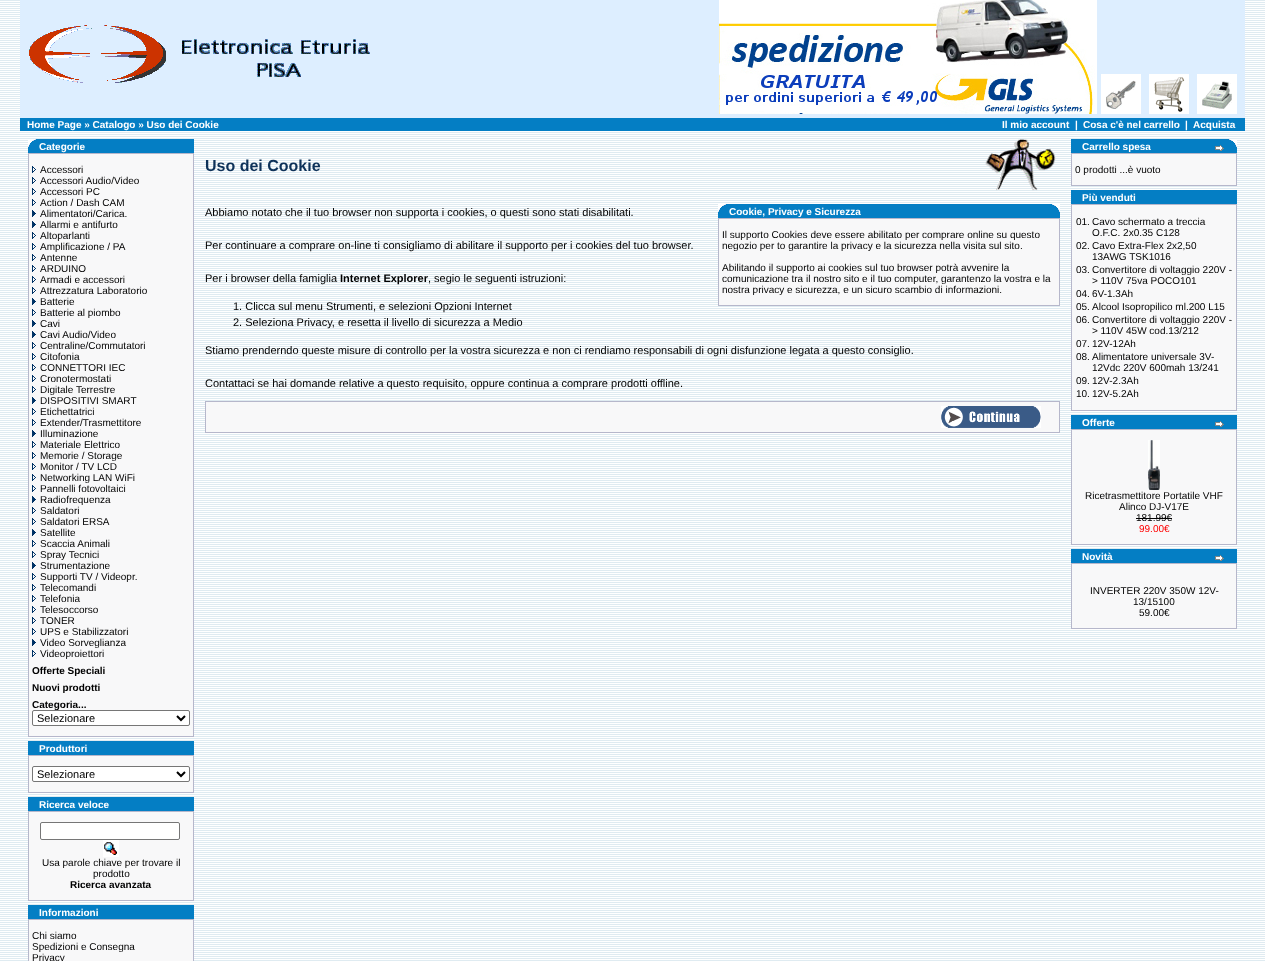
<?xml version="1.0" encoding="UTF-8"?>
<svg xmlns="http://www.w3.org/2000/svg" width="1265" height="961">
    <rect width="100%" height="100%" fill="#FFFFFF"/>
    <image x="0" y="0" width="1265" height="961" href="img_01.png"/>
    <rect x="20" y="0" width="1225" height="118" fill="#DDEEFF"/>
    <image x="29" y="25" width="341" height="58" href="img_02.png"/>
    <image x="719" y="0" width="378" height="114" href="img_03.png"/>
    <image x="1101" y="74" width="40" height="40" href="img_04.png"/>
    <image x="1149" y="74" width="40" height="40" href="img_05.png"/>
    <image x="1197" y="74" width="40" height="40" href="img_06.png"/>
    <rect x="20" y="118" width="1225" height="13" fill="#047EC4"/>
    <text x="27" y="128" font-family="Liberation Sans" font-size="10" font-weight="700" fill="#FFFFFF">Home Page » Catalogo » Uso dei Cookie</text>
    <text x="1002" y="128" font-family="Liberation Sans" font-size="10" font-weight="700" fill="#FFFFFF">Il mio account</text>
    <text x="1075" y="128" font-family="Liberation Sans" font-size="10" font-weight="700" fill="#FFFFFF">|</text>
    <text x="1083" y="128" font-family="Liberation Sans" font-size="10" font-weight="700" fill="#FFFFFF">Cosa c'è nel carrello</text>
    <text x="1185" y="128" font-family="Liberation Sans" font-size="10" font-weight="700" fill="#FFFFFF">|</text>
    <text x="1193" y="128" font-family="Liberation Sans" font-size="10" font-weight="700" fill="#FFFFFF">Acquista</text>
    <rect x="28" y="139" width="166" height="14" fill="#047EC4"/>
    <image x="28" y="139" width="8" height="8" href="img_07.png"/>
    <text x="39" y="150" font-family="Liberation Sans" font-size="10" font-weight="700" fill="#FFFFFF">Categorie</text>
    <rect x="28" y="153" width="166" height="584" fill="#B6B7CB"/>
    <rect x="29" y="154" width="164" height="582" fill="#F8F8F9"/>
    <image x="32" y="166" width="4" height="7" href="img_08.png"/>
    <text x="40" y="173" font-family="Liberation Sans" font-size="10" fill="#000000">Accessori</text>
    <image x="32" y="177" width="4" height="7" href="img_08.png"/>
    <text x="40" y="184" font-family="Liberation Sans" font-size="10" fill="#000000">Accessori Audio/Video</text>
    <image x="32" y="188" width="4" height="7" href="img_08.png"/>
    <text x="40" y="195" font-family="Liberation Sans" font-size="10" fill="#000000">Accessori PC</text>
    <image x="32" y="199" width="4" height="7" href="img_08.png"/>
    <text x="40" y="206" font-family="Liberation Sans" font-size="10" fill="#000000">Action / Dash CAM</text>
    <image x="32" y="210" width="4" height="7" href="img_09.png"/>
    <text x="40" y="217" font-family="Liberation Sans" font-size="10" fill="#000000">Alimentatori/Carica.</text>
    <image x="32" y="221" width="4" height="7" href="img_09.png"/>
    <text x="40" y="228" font-family="Liberation Sans" font-size="10" fill="#000000">Allarmi e antifurto</text>
    <image x="32" y="232" width="4" height="7" href="img_08.png"/>
    <text x="40" y="239" font-family="Liberation Sans" font-size="10" fill="#000000">Altoparlanti</text>
    <image x="32" y="243" width="4" height="7" href="img_08.png"/>
    <text x="40" y="250" font-family="Liberation Sans" font-size="10" fill="#000000">Amplificazione / PA</text>
    <image x="32" y="254" width="4" height="7" href="img_08.png"/>
    <text x="40" y="261" font-family="Liberation Sans" font-size="10" fill="#000000">Antenne</text>
    <image x="32" y="265" width="4" height="7" href="img_08.png"/>
    <text x="40" y="272" font-family="Liberation Sans" font-size="10" fill="#000000">ARDUINO</text>
    <image x="32" y="276" width="4" height="7" href="img_08.png"/>
    <text x="40" y="283" font-family="Liberation Sans" font-size="10" fill="#000000">Armadi e accessori</text>
    <image x="32" y="287" width="4" height="7" href="img_08.png"/>
    <text x="40" y="294" font-family="Liberation Sans" font-size="10" fill="#000000">Attrezzatura Laboratorio</text>
    <image x="32" y="298" width="4" height="7" href="img_09.png"/>
    <text x="40" y="305" font-family="Liberation Sans" font-size="10" fill="#000000">Batterie</text>
    <image x="32" y="309" width="4" height="7" href="img_08.png"/>
    <text x="40" y="316" font-family="Liberation Sans" font-size="10" fill="#000000">Batterie al piombo</text>
    <image x="32" y="320" width="4" height="7" href="img_09.png"/>
    <text x="40" y="327" font-family="Liberation Sans" font-size="10" fill="#000000">Cavi</text>
    <image x="32" y="331" width="4" height="7" href="img_09.png"/>
    <text x="40" y="338" font-family="Liberation Sans" font-size="10" fill="#000000">Cavi Audio/Video</text>
    <image x="32" y="342" width="4" height="7" href="img_08.png"/>
    <text x="40" y="349" font-family="Liberation Sans" font-size="10" fill="#000000">Centraline/Commutatori</text>
    <image x="32" y="353" width="4" height="7" href="img_08.png"/>
    <text x="40" y="360" font-family="Liberation Sans" font-size="10" fill="#000000">Citofonia</text>
    <image x="32" y="364" width="4" height="7" href="img_08.png"/>
    <text x="40" y="371" font-family="Liberation Sans" font-size="10" fill="#000000">CONNETTORI IEC</text>
    <image x="32" y="375" width="4" height="7" href="img_08.png"/>
    <text x="40" y="382" font-family="Liberation Sans" font-size="10" fill="#000000">Cronotermostati</text>
    <image x="32" y="386" width="4" height="7" href="img_08.png"/>
    <text x="40" y="393" font-family="Liberation Sans" font-size="10" fill="#000000">Digitale Terrestre</text>
    <image x="32" y="397" width="4" height="7" href="img_09.png"/>
    <text x="40" y="404" font-family="Liberation Sans" font-size="10" fill="#000000">DISPOSITIVI SMART</text>
    <image x="32" y="408" width="4" height="7" href="img_08.png"/>
    <text x="40" y="415" font-family="Liberation Sans" font-size="10" fill="#000000">Etichettatrici</text>
    <image x="32" y="419" width="4" height="7" href="img_08.png"/>
    <text x="40" y="426" font-family="Liberation Sans" font-size="10" fill="#000000">Extender/Trasmettitore</text>
    <image x="32" y="430" width="4" height="7" href="img_09.png"/>
    <text x="40" y="437" font-family="Liberation Sans" font-size="10" fill="#000000">Illuminazione</text>
    <image x="32" y="441" width="4" height="7" href="img_08.png"/>
    <text x="40" y="448" font-family="Liberation Sans" font-size="10" fill="#000000">Materiale Elettrico</text>
    <image x="32" y="452" width="4" height="7" href="img_08.png"/>
    <text x="40" y="459" font-family="Liberation Sans" font-size="10" fill="#000000">Memorie / Storage</text>
    <image x="32" y="463" width="4" height="7" href="img_08.png"/>
    <text x="40" y="470" font-family="Liberation Sans" font-size="10" fill="#000000">Monitor / TV LCD</text>
    <image x="32" y="474" width="4" height="7" href="img_08.png"/>
    <text x="40" y="481" font-family="Liberation Sans" font-size="10" fill="#000000">Networking LAN WiFi</text>
    <image x="32" y="485" width="4" height="7" href="img_08.png"/>
    <text x="40" y="492" font-family="Liberation Sans" font-size="10" fill="#000000">Pannelli fotovoltaici</text>
    <image x="32" y="496" width="4" height="7" href="img_09.png"/>
    <text x="40" y="503" font-family="Liberation Sans" font-size="10" fill="#000000">Radiofrequenza</text>
    <image x="32" y="507" width="4" height="7" href="img_08.png"/>
    <text x="40" y="514" font-family="Liberation Sans" font-size="10" fill="#000000">Saldatori</text>
    <image x="32" y="518" width="4" height="7" href="img_08.png"/>
    <text x="40" y="525" font-family="Liberation Sans" font-size="10" fill="#000000">Saldatori ERSA</text>
    <image x="32" y="529" width="4" height="7" href="img_09.png"/>
    <text x="40" y="536" font-family="Liberation Sans" font-size="10" fill="#000000">Satellite</text>
    <image x="32" y="540" width="4" height="7" href="img_08.png"/>
    <text x="40" y="547" font-family="Liberation Sans" font-size="10" fill="#000000">Scaccia Animali</text>
    <image x="32" y="551" width="4" height="7" href="img_08.png"/>
    <text x="40" y="558" font-family="Liberation Sans" font-size="10" fill="#000000">Spray Tecnici</text>
    <image x="32" y="562" width="4" height="7" href="img_09.png"/>
    <text x="40" y="569" font-family="Liberation Sans" font-size="10" fill="#000000">Strumentazione</text>
    <image x="32" y="573" width="4" height="7" href="img_08.png"/>
    <text x="40" y="580" font-family="Liberation Sans" font-size="10" fill="#000000">Supporti TV / Videopr.</text>
    <image x="32" y="584" width="4" height="7" href="img_08.png"/>
    <text x="40" y="591" font-family="Liberation Sans" font-size="10" fill="#000000">Telecomandi</text>
    <image x="32" y="595" width="4" height="7" href="img_08.png"/>
    <text x="40" y="602" font-family="Liberation Sans" font-size="10" fill="#000000">Telefonia</text>
    <image x="32" y="606" width="4" height="7" href="img_08.png"/>
    <text x="40" y="613" font-family="Liberation Sans" font-size="10" fill="#000000">Telesoccorso</text>
    <image x="32" y="617" width="4" height="7" href="img_08.png"/>
    <text x="40" y="624" font-family="Liberation Sans" font-size="10" fill="#000000">TONER</text>
    <image x="32" y="628" width="4" height="7" href="img_08.png"/>
    <text x="40" y="635" font-family="Liberation Sans" font-size="10" fill="#000000">UPS e Stabilizzatori</text>
    <image x="32" y="639" width="4" height="7" href="img_09.png"/>
    <text x="40" y="646" font-family="Liberation Sans" font-size="10" fill="#000000">Video Sorveglianza</text>
    <image x="32" y="650" width="4" height="7" href="img_08.png"/>
    <text x="40" y="657" font-family="Liberation Sans" font-size="10" fill="#000000">Videoproiettori</text>
    <text font-family="Liberation Sans" font-size="10" font-weight="700" fill="#000000">
        <tspan x="32" y="674">Offerte Speciali</tspan>
        <tspan x="32" y="691">Nuovi prodotti</tspan>
        <tspan x="32" y="708">Categoria...</tspan>
    </text>
    <rect x="32.5" y="710.5" width="157" height="15" rx="1.5" fill="#FFFFFF" stroke="#767676"/>
    <path d="M 177 716 L 181 720 L 185 716" fill="none" stroke="#000000" stroke-width="2"/>
    <text x="37" y="722" font-family="Liberation Sans" font-size="11" fill="#000000">Selezionare</text>
    <rect x="28" y="741" width="166" height="14" fill="#047EC4"/>
    <text x="39" y="752" font-family="Liberation Sans" font-size="10" font-weight="700" fill="#FFFFFF">Produttori</text>
    <rect x="28" y="755" width="166" height="38" fill="#B6B7CB"/>
    <rect x="29" y="756" width="164" height="36" fill="#F8F8F9"/>
    <rect x="32.5" y="766.5" width="157" height="15" rx="1.5" fill="#FFFFFF" stroke="#767676"/>
    <path d="M 177 772 L 181 776 L 185 772" fill="none" stroke="#000000" stroke-width="2"/>
    <text x="37" y="778" font-family="Liberation Sans" font-size="11" fill="#000000">Selezionare</text>
    <rect x="28" y="797" width="166" height="14" fill="#047EC4"/>
    <text x="39" y="808" font-family="Liberation Sans" font-size="10" font-weight="700" fill="#FFFFFF">Ricerca veloce</text>
    <rect x="28" y="811" width="166" height="90" fill="#B6B7CB"/>
    <rect x="29" y="812" width="164" height="88" fill="#F8F8F9"/>
    <rect x="40.5" y="822.5" width="139" height="17" rx="1.5" fill="#FFFFFF" stroke="#767676"/>
    <image x="103" y="840" width="16" height="17" href="img_10.png"/>
    <text x="42" y="866" font-family="Liberation Sans" font-size="10" fill="#000000">Usa parole chiave per trovare il</text>
    <text x="93" y="877" font-family="Liberation Sans" font-size="10" fill="#000000">prodotto</text>
    <text x="70" y="888" font-family="Liberation Sans" font-size="10" font-weight="700" fill="#000000">Ricerca avanzata</text>
    <rect x="28" y="905" width="166" height="14" fill="#047EC4"/>
    <text x="39" y="916" font-family="Liberation Sans" font-size="10" font-weight="700" fill="#FFFFFF">Informazioni</text>
    <rect x="28" y="919" width="166" height="42" fill="#B6B7CB"/>
    <rect x="29" y="920" width="164" height="41" fill="#F8F8F9"/>
    <text font-family="Liberation Sans" font-size="10" fill="#000000">
        <tspan x="32" y="939">Chi siamo</tspan>
        <tspan x="32" y="950">Spedizioni e Consegna</tspan>
        <tspan x="32" y="961">Privacy</tspan>
    </text>
    <text x="205" y="171" font-family="Liberation Sans" font-size="16" font-weight="700" fill="#0E3259">Uso dei Cookie</text>
    <image x="985" y="139" width="71" height="52" href="img_11.png"/>
    <text x="205" y="216" font-family="Liberation Sans" font-size="11" fill="#000000">Abbiamo notato che il tuo browser non supporta i cookies, o questi sono stati disabilitati.</text>
    <rect x="718" y="204" width="342" height="14" fill="#047EC4"/>
    <image x="718" y="204" width="8" height="8" href="img_07.png"/>
    <text x="729" y="215" font-family="Liberation Sans" font-size="10" font-weight="700" fill="#FFFFFF">Cookie, Privacy e Sicurezza</text>
    <image x="1052" y="204" width="8" height="8" href="img_12.png"/>
    <rect x="718" y="218" width="342" height="88" fill="#B6B7CB"/>
    <rect x="719" y="219" width="340" height="86" fill="#F8F8F9"/>
    <text font-family="Liberation Sans" font-size="10" fill="#000000">
        <tspan x="722" y="238">Il supporto Cookies deve essere abilitato per comprare online su questo</tspan>
        <tspan x="722" y="249">negozio per to garantire la privacy e la sicurezza nella visita sul sito.</tspan>
    </text>
    <text font-family="Liberation Sans" font-size="10" fill="#000000">
        <tspan x="722" y="271">Abilitando il supporto ai cookies sul tuo browser potrà avvenire la</tspan>
        <tspan x="722" y="282">comunicazione tra il nostro sito e il tuo computer, garantenzo la vostra e la</tspan>
        <tspan x="722" y="293">nostra privacy e sicurezza, e un sicuro scambio di informazioni.</tspan>
    </text>
    <text x="205" y="249" font-family="Liberation Sans" font-size="11" fill="#000000">Per continuare a comprare on-line ti consigliamo di abilitare il supporto per i cookies del tuo browser.</text>
    <text x="205" y="282" font-family="Liberation Sans" font-size="11" fill="#000000">Per i browser della famiglia</text>
    <text x="340" y="282" font-family="Liberation Sans" font-size="11" font-weight="700" fill="#000000">Internet Explorer</text>
    <text x="428" y="282" font-family="Liberation Sans" font-size="11" fill="#000000">, segio le seguenti istruzioni:</text>
    <text font-family="Liberation Sans" font-size="11" fill="#000000">
        <tspan x="233" y="310">1. Clicca sul menu Strumenti, e selezioni Opzioni Internet</tspan>
        <tspan x="233" y="326">2. Seleziona Privacy, e resetta il livello di sicurezza a Medio</tspan>
    </text>
    <text x="205" y="354" font-family="Liberation Sans" font-size="11" fill="#000000">Stiamo prenderndo queste misure di controllo per la vostra sicurezza e non ci rendiamo responsabili di ogni disfunzione legata a questo consiglio.</text>
    <text x="205" y="387" font-family="Liberation Sans" font-size="11" fill="#000000">Contattaci se hai domande relative a questo requisito, oppure continua a comprare prodotti offline.</text>
    <rect x="205" y="401" width="855" height="32" fill="#B6B7CB"/>
    <rect x="206" y="402" width="853" height="30" fill="#F8F8F9"/>
    <image x="941" y="406" width="100" height="22" href="img_13.png"/>
    <rect x="1071" y="139" width="166" height="14" fill="#047EC4"/>
    <text x="1082" y="150" font-family="Liberation Sans" font-size="10" font-weight="700" fill="#FFFFFF">Carrello spesa</text>
    <image x="1229" y="139" width="8" height="8" href="img_12.png"/>
    <image x="1215" y="145" width="9" height="6" href="img_14.png"/>
    <rect x="1071" y="153" width="166" height="33" fill="#B6B7CB"/>
    <rect x="1072" y="154" width="164" height="31" fill="#F8F8F9"/>
    <text x="1075" y="173" font-family="Liberation Sans" font-size="10" fill="#000000">0 prodotti ...è vuoto</text>
    <rect x="1071" y="190" width="166" height="14" fill="#047EC4"/>
    <text x="1082" y="201" font-family="Liberation Sans" font-size="10" font-weight="700" fill="#FFFFFF">Più venduti</text>
    <rect x="1071" y="204" width="166" height="207" fill="#B6B7CB"/>
    <rect x="1072" y="205" width="164" height="205" fill="#F8F8F9"/>
    <text x="1076" y="225" font-family="Liberation Sans" font-size="10" fill="#000000">01.</text>
    <text font-family="Liberation Sans" font-size="10" fill="#000000">
        <tspan x="1092" y="225">Cavo schermato a treccia</tspan>
        <tspan x="1092" y="236">O.F.C. 2x0.35 C128</tspan>
    </text>
    <text x="1076" y="249" font-family="Liberation Sans" font-size="10" fill="#000000">02.</text>
    <text font-family="Liberation Sans" font-size="10" fill="#000000">
        <tspan x="1092" y="249">Cavo Extra-Flex 2x2,50</tspan>
        <tspan x="1092" y="260">13AWG TSK1016</tspan>
    </text>
    <text x="1076" y="273" font-family="Liberation Sans" font-size="10" fill="#000000">03.</text>
    <text font-family="Liberation Sans" font-size="10" fill="#000000">
        <tspan x="1092" y="273">Convertitore di voltaggio 220V -</tspan>
        <tspan x="1092" y="284">&gt; 110V 75va POCO101</tspan>
    </text>
    <text x="1076" y="297" font-family="Liberation Sans" font-size="10" fill="#000000">04.</text>
    <text x="1092" y="297" font-family="Liberation Sans" font-size="10" fill="#000000">6V-1.3Ah</text>
    <text x="1076" y="310" font-family="Liberation Sans" font-size="10" fill="#000000">05.</text>
    <text x="1092" y="310" font-family="Liberation Sans" font-size="10" fill="#000000">Alcool Isopropilico ml.200 L15</text>
    <text x="1076" y="323" font-family="Liberation Sans" font-size="10" fill="#000000">06.</text>
    <text font-family="Liberation Sans" font-size="10" fill="#000000">
        <tspan x="1092" y="323">Convertitore di voltaggio 220V -</tspan>
        <tspan x="1092" y="334">&gt; 110V 45W cod.13/212</tspan>
    </text>
    <text x="1076" y="347" font-family="Liberation Sans" font-size="10" fill="#000000">07.</text>
    <text x="1092" y="347" font-family="Liberation Sans" font-size="10" fill="#000000">12V-12Ah</text>
    <text x="1076" y="360" font-family="Liberation Sans" font-size="10" fill="#000000">08.</text>
    <text font-family="Liberation Sans" font-size="10" fill="#000000">
        <tspan x="1092" y="360">Alimentatore universale 3V-</tspan>
        <tspan x="1092" y="371">12Vdc 220V 600mah 13/241</tspan>
    </text>
    <text x="1076" y="384" font-family="Liberation Sans" font-size="10" fill="#000000">09.</text>
    <text x="1092" y="384" font-family="Liberation Sans" font-size="10" fill="#000000">12V-2.3Ah</text>
    <text x="1076" y="397" font-family="Liberation Sans" font-size="10" fill="#000000">10.</text>
    <text x="1092" y="397" font-family="Liberation Sans" font-size="10" fill="#000000">12V-5.2Ah</text>
    <rect x="1071" y="415" width="166" height="14" fill="#047EC4"/>
    <text x="1082" y="426" font-family="Liberation Sans" font-size="10" font-weight="700" fill="#FFFFFF">Offerte</text>
    <image x="1215" y="421" width="9" height="6" href="img_14.png"/>
    <rect x="1071" y="429" width="166" height="116" fill="#B6B7CB"/>
    <rect x="1072" y="430" width="164" height="114" fill="#F8F8F9"/>
    <image x="1148" y="440" width="12" height="50" href="img_15.png"/>
    <text x="1085" y="499" font-family="Liberation Sans" font-size="10" fill="#000000">Ricetrasmettitore Portatile VHF</text>
    <text x="1119" y="510" font-family="Liberation Sans" font-size="10" fill="#000000">Alinco DJ-V17E</text>
    <text x="1136" y="521" font-family="Liberation Sans" font-size="10" fill="#000000">181.99€</text>
    <rect x="1136" y="518" width="36" height="1" fill="#000000"/>
    <text x="1139" y="532" font-family="Liberation Sans" font-size="10" fill="#FF0000">99.00€</text>
    <rect x="1071" y="549" width="166" height="14" fill="#047EC4"/>
    <text x="1082" y="560" font-family="Liberation Sans" font-size="10" font-weight="700" fill="#FFFFFF">Novità</text>
    <image x="1215" y="555" width="9" height="6" href="img_14.png"/>
    <rect x="1071" y="563" width="166" height="66" fill="#B6B7CB"/>
    <rect x="1072" y="564" width="164" height="64" fill="#F8F8F9"/>
    <text x="1090" y="594" font-family="Liberation Sans" font-size="10" fill="#000000">INVERTER 220V 350W 12V-</text>
    <text x="1133" y="605" font-family="Liberation Sans" font-size="10" fill="#000000">13/15100</text>
    <text x="1139" y="616" font-family="Liberation Sans" font-size="10" fill="#000000">59.00€</text>
</svg>
